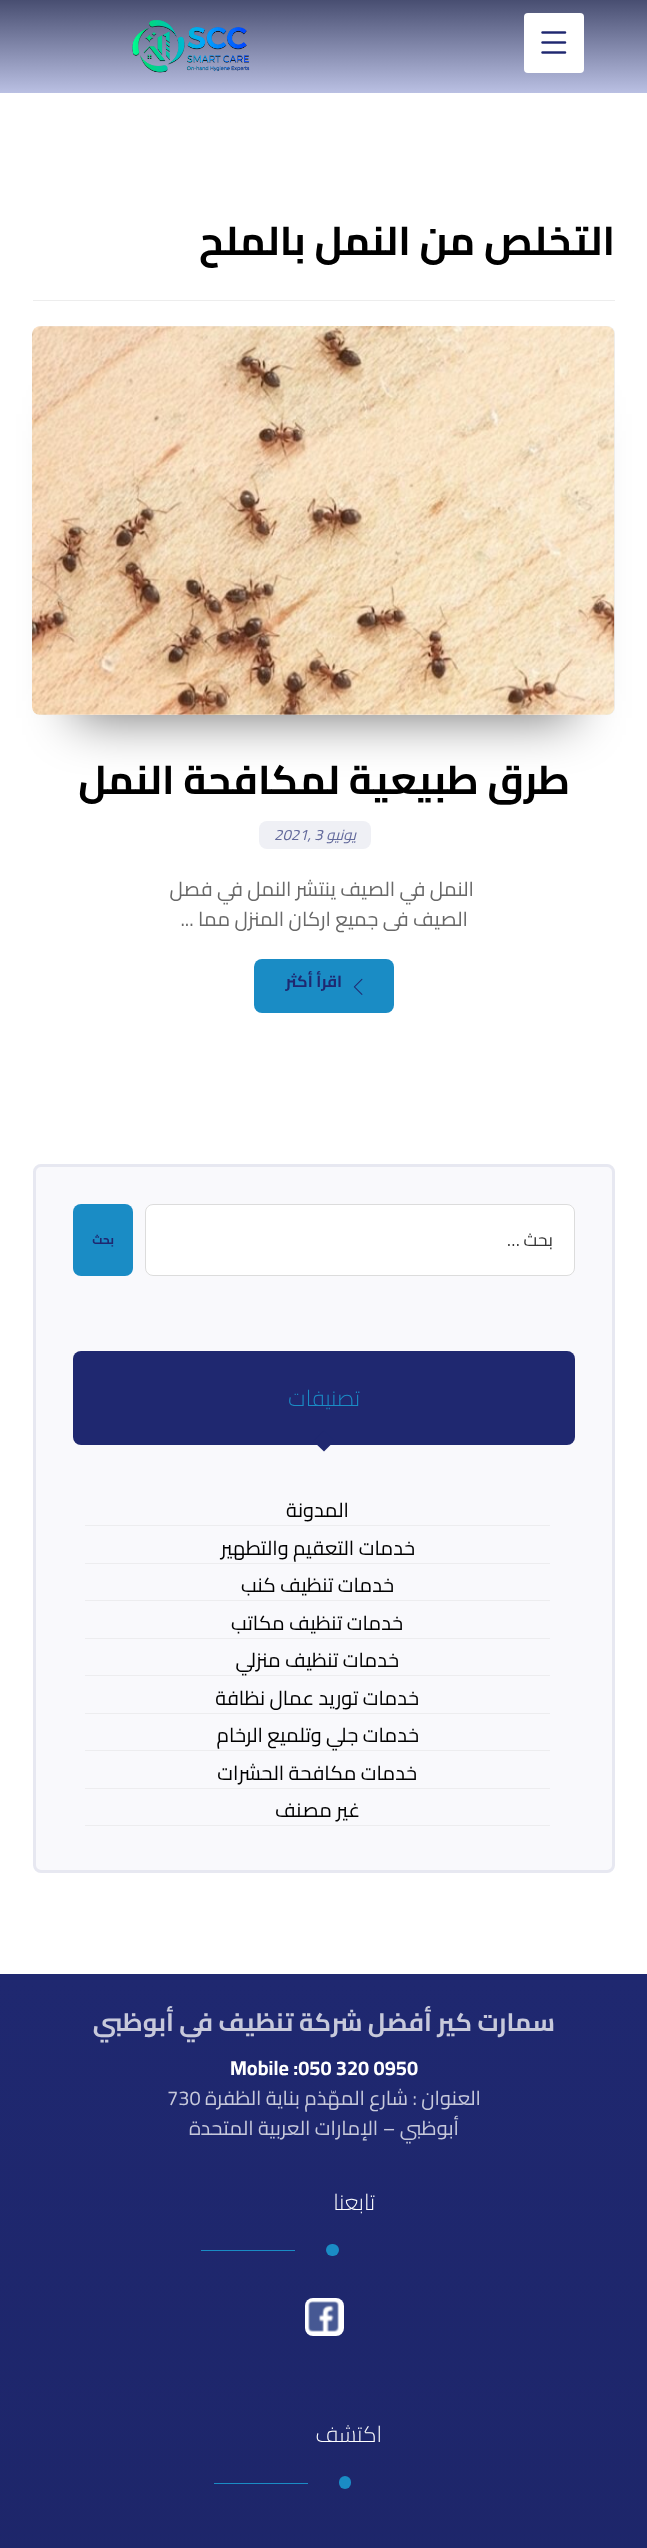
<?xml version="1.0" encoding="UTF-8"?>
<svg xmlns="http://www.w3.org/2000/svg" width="647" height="2548">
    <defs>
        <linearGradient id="g1" gradientUnits="userSpaceOnUse" x1="324" y1="93" x2="324" y2="0"><stop offset="0" stop-color="#BAC0E3"/><stop offset="1" stop-color="#484E71"/></linearGradient>
        <filter id="blur1" x="-50%" y="-200%" width="200%" height="500%"><feGaussianBlur stdDeviation="25.5"/></filter>
        <linearGradient id="g2" gradientUnits="userSpaceOnUse" x1="324" y1="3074" x2="324" y2="1974"><stop offset="0" stop-color="#1C2465"/><stop offset="1" stop-color="#1F2870"/></linearGradient>
    </defs>
    <rect width="100%" height="100%" fill="#FFFFFF"/>
    <rect x="0" y="0" width="647" height="93" fill="url(#g1)"/>
    <rect x="524" y="13" width="60" height="60" rx="4" fill="#FFFFFF"/>
    <image x="541" y="31" width="26" height="23" href="img_01.png"/>
    <image x="132" y="20" width="118" height="53" href="img_02.png"/>
    <rect x="33" y="300" width="582" height="1" fill="#EDEDED"/>
    <text x="615" y="255" font-family="Cairo" font-size="40" font-weight="700" direction="rtl" fill="#000000">التخلص من النمل بالملح</text>
    <rect x="75" y="414" width="498" height="304" fill="#000000" fill-opacity="0.54" filter="url(#blur1)"/>
    <rect x="33" y="326" width="582" height="389" rx="8" fill="#EEEEEE"/>
    <image x="32" y="326" width="583" height="389" href="img_03.png"/>
    <text x="570" y="794" font-family="Cairo" font-size="40" font-weight="700" direction="rtl" fill="#000000">طرق طبيعية لمكافحة النمل</text>
    <rect x="259" y="821" width="112" height="28" rx="8" fill="#EFF0F5"/>
    <text x="356" y="840" font-family="Cairo" font-size="15" font-style="italic" direction="rtl" fill="#62699B">يونيو</text>
    <text x="274" y="840" font-family="Cairo" font-size="15" font-style="italic" fill="#62699B">2021, 3</text>
    <text x="474" y="896" font-family="Cairo" font-size="20" direction="rtl" fill="#686868">النمل في الصيف ينتشر النمل في فصل</text>
    <text x="468" y="926" font-family="Cairo" font-size="20" direction="rtl" fill="#686868">الصيف فى جميع اركان المنزل مما ...</text>
    <rect x="254" y="959" width="140" height="54" rx="8" fill="#1A8CC5"/>
    <image x="353" y="978" width="10" height="17" href="img_04.png"/>
    <text x="342" y="987" font-family="Cairo" font-size="16" font-weight="700" direction="rtl" fill="#1F2870">اقرأ أكثر</text>
    <rect x="33" y="1164" width="582" height="709" rx="8" fill="#F9F9FC"/>
    <rect x="34.5" y="1165.5" width="579" height="706" rx="6.5" fill="none" stroke="#1F2870" stroke-opacity="0.08" stroke-width="3"/>
    <rect x="145" y="1204" width="430" height="72" rx="8" fill="#FFFFFF"/>
    <rect x="145.5" y="1204.5" width="429" height="71" rx="7.5" fill="none" stroke="#A7A7A7" stroke-opacity="0.4"/>
    <text x="553" y="1246" font-family="Cairo" font-size="17.5" direction="rtl" fill="#333333">بحث …</text>
    <rect x="73" y="1204" width="60" height="72" rx="8" fill="#1A8CC5"/>
    <text x="114" y="1244" font-family="Cairo" font-size="12" font-weight="700" direction="rtl" fill="#1F2870">بحث</text>
    <rect x="73" y="1351" width="502" height="94" rx="8" fill="#1F2870"/>
    <text x="360" y="1406" font-family="Cairo" font-size="22.5" font-weight="300" direction="rtl" fill="#1A8CC5">تصنيفات</text>
    <path d="M 324 1430.5 L 334.5 1441 L 324 1451.5 L 313 1441 Z" fill="#1F2870"/>
    <rect x="85" y="1525" width="465" height="1" fill="#EDEDEF"/>
    <text x="349" y="1517" font-family="Cairo" font-size="20" direction="rtl" fill="#000000">المدونة</text>
    <rect x="85" y="1563" width="465" height="1" fill="#EDEDEF"/>
    <text x="415" y="1555" font-family="Cairo" font-size="20" direction="rtl" fill="#000000">خدمات التعقيم والتطهير</text>
    <rect x="85" y="1600" width="465" height="1" fill="#EDEDEF"/>
    <text x="394" y="1592" font-family="Cairo" font-size="20" direction="rtl" fill="#000000">خدمات تنظيف كنب</text>
    <rect x="85" y="1638" width="465" height="1" fill="#EDEDEF"/>
    <text x="403" y="1630" font-family="Cairo" font-size="20" direction="rtl" fill="#000000">خدمات تنظيف مكاتب</text>
    <rect x="85" y="1675" width="465" height="1" fill="#EDEDEF"/>
    <text x="399" y="1667" font-family="Cairo" font-size="20" direction="rtl" fill="#000000">خدمات تنظيف منزلي</text>
    <rect x="85" y="1713" width="465" height="1" fill="#EDEDEF"/>
    <text x="419" y="1705" font-family="Cairo" font-size="20" direction="rtl" fill="#000000">خدمات توريد عمال نظافة</text>
    <rect x="85" y="1750" width="465" height="1" fill="#EDEDEF"/>
    <text x="419" y="1742" font-family="Cairo" font-size="20" direction="rtl" fill="#000000">خدمات جلي وتلميع الرخام</text>
    <rect x="85" y="1788" width="465" height="1" fill="#EDEDEF"/>
    <text x="417" y="1780" font-family="Cairo" font-size="20" direction="rtl" fill="#000000">خدمات مكافحة الحشرات</text>
    <rect x="85" y="1825" width="465" height="1" fill="#EDEDEF"/>
    <text x="360" y="1817" font-family="Cairo" font-size="20" direction="rtl" fill="#000000">غير مصنف</text>
    <rect x="0" y="1974" width="647" height="574" fill="url(#g2)"/>
    <text x="555" y="2031" font-family="Cairo" font-size="25" font-weight="700" direction="rtl" fill="#C7C9DB">سمارت كير أفضل شركة تنظيف في أبوظبي</text>
    <text x="230" y="2075" font-family="Cairo" font-size="20" font-weight="700" fill="#FFFFFF">Mobile :050 320 0950</text>
    <text x="481" y="2105" font-family="Cairo" font-size="20" direction="rtl" fill="#C7C9DB">العنوان : شارع المهّذم بناية الظفرة</text>
    <text x="167" y="2105" font-family="Cairo" font-size="20" fill="#C7C9DB">730</text>
    <text x="459" y="2135" font-family="Cairo" font-size="20" direction="rtl" fill="#C7C9DB">أبوظبي – الإمارات العربية المتحدة</text>
    <text x="375" y="2210" font-family="Cairo" font-size="22.5" font-weight="300" letter-spacing="5" direction="rtl" fill="#FFFFFF">تابعنا</text>
    <rect x="326" y="2244" width="13" height="12" rx="6" fill="#1A8CC5"/>
    <rect x="201" y="2250" width="94" height="1" fill="#1A8CC5"/>
    <rect x="305" y="2298" width="39" height="38" rx="8" fill="#FFFFFF"/>
    <image x="308" y="2301" width="31" height="31" href="img_05.png"/>
    <text x="382" y="2442" font-family="Cairo" font-size="22.5" font-weight="300" letter-spacing="5" direction="rtl" fill="#FFFFFF">اكتشف</text>
    <rect x="339" y="2476" width="12" height="13" rx="6" fill="#1A8CC5"/>
    <rect x="214" y="2483" width="94" height="1" fill="#1A8CC5"/>
</svg>
